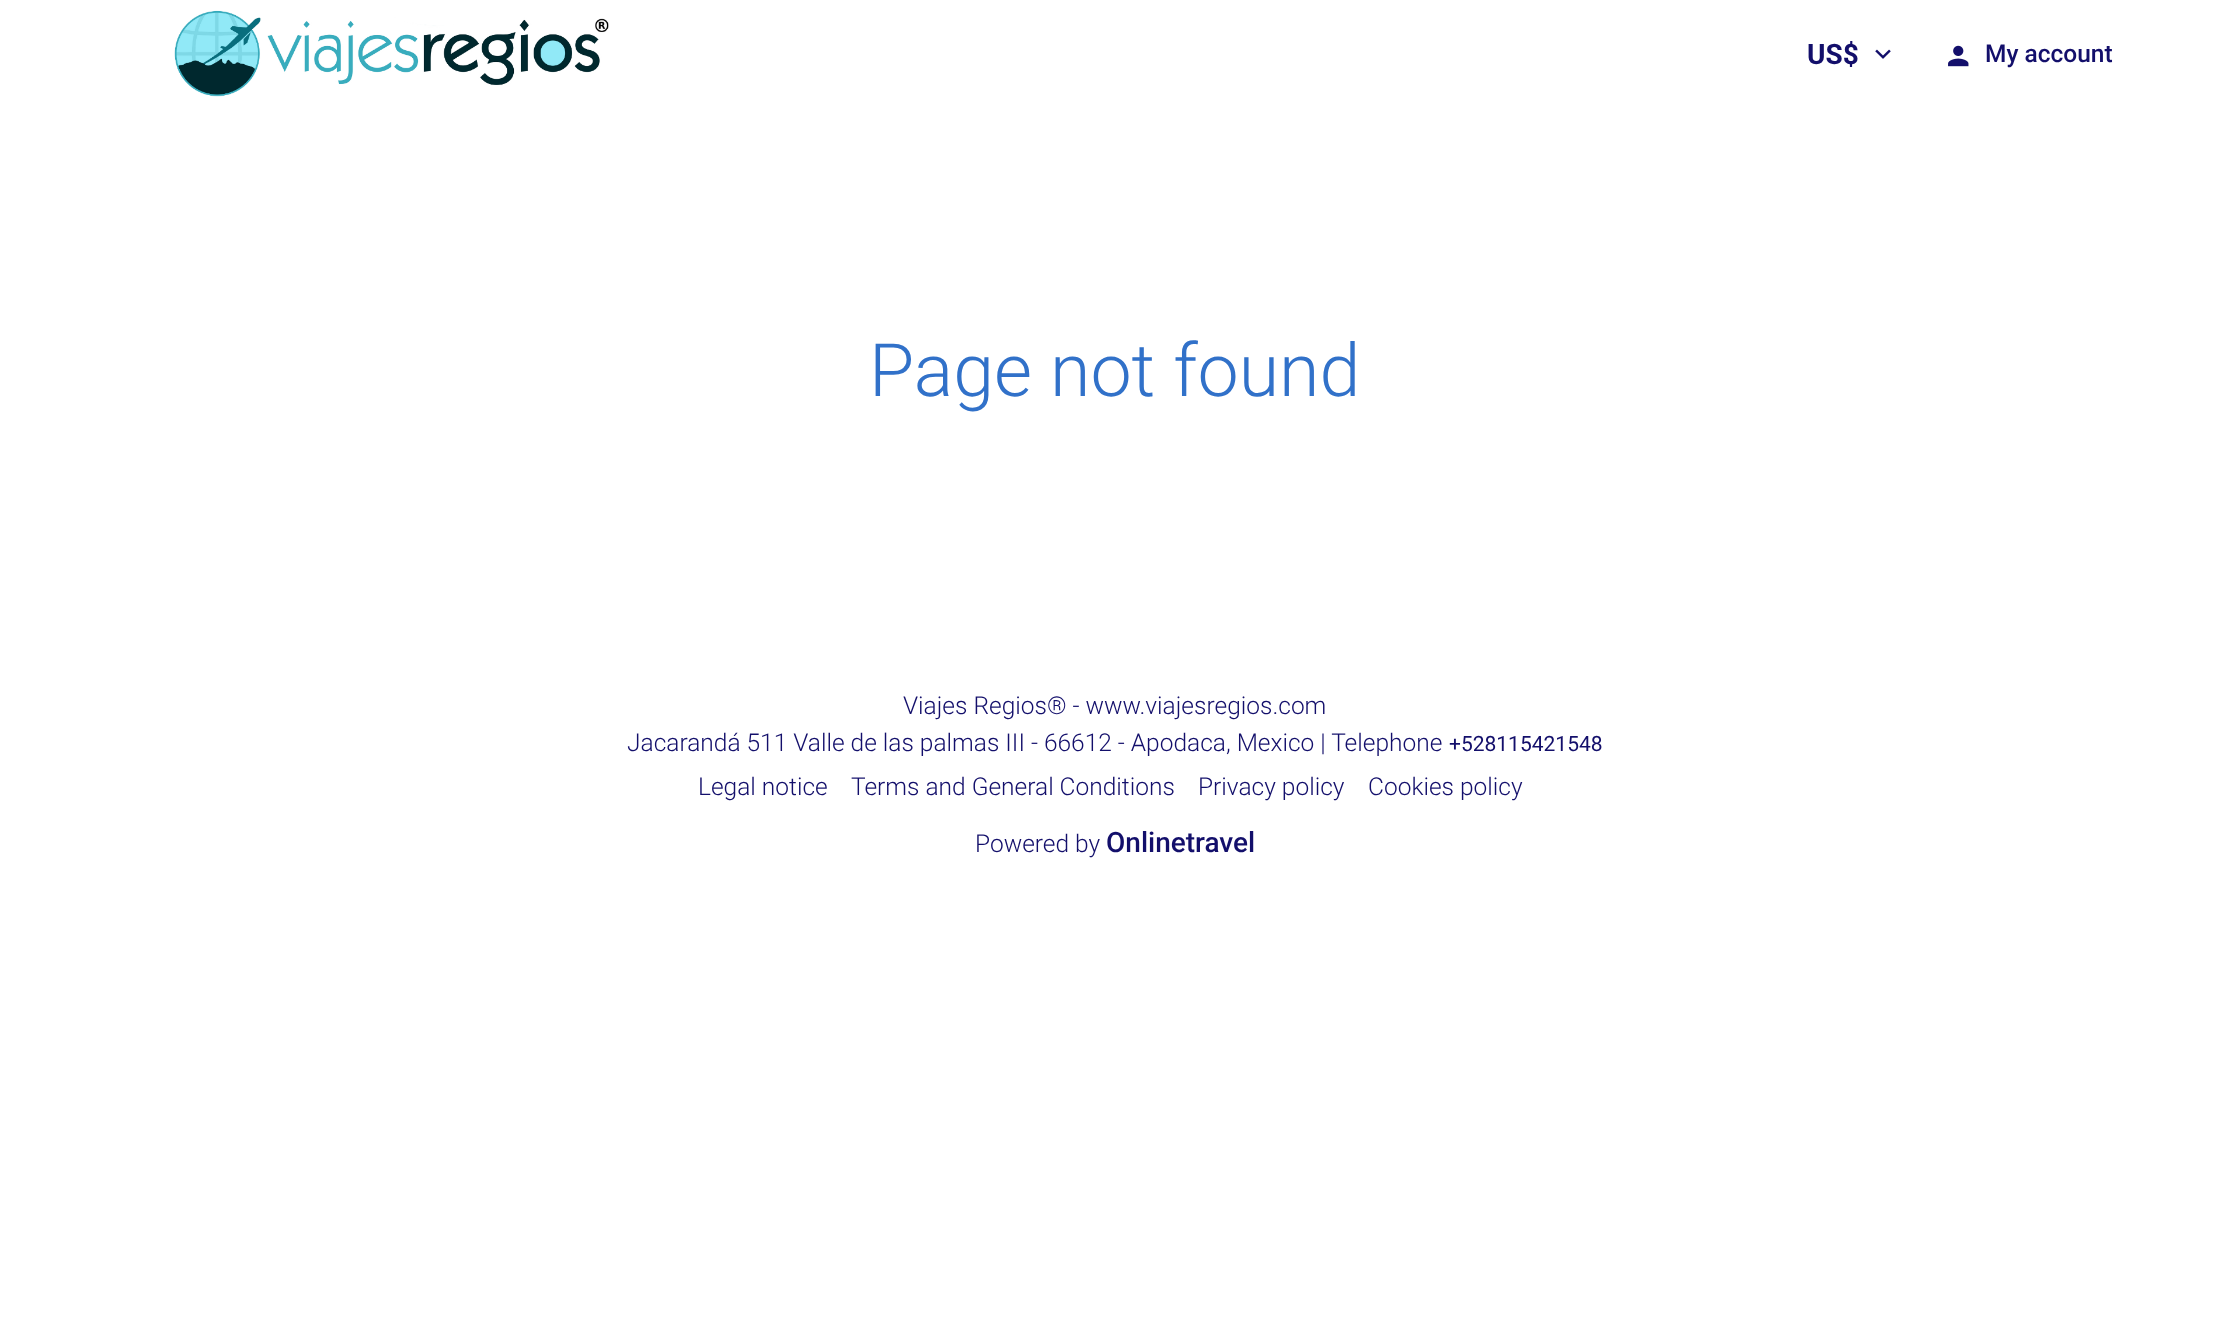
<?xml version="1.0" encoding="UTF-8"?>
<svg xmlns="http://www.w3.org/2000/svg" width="2228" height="1332">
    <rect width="100%" height="100%" fill="#FFFFFF"/>
    <image x="174" y="10" width="435" height="87" href="img_01.png"/>
    <text x="1807" y="64" font-family="Roboto" font-size="28" font-weight="700" fill="#130F6B">US$</text>
    <image x="1875" y="49" width="16" height="10" href="img_02.png"/>
    <image x="1948" y="45" width="21" height="22" href="img_03.png"/>
    <text x="1985" y="62" font-family="Roboto" font-size="24.5" font-weight="500" fill="#130F6B">My account</text>
    <text x="869" y="396" font-family="Roboto" font-size="73.5" font-weight="300" fill="#3171C9">Page not found</text>
    <text x="903" y="714" font-family="Roboto" font-size="24.5" font-weight="300" fill="#130F6B">Viajes Regios® - www.viajesregios.com</text>
    <text x="627" y="751" font-family="Roboto" font-size="24.5" font-weight="300" fill="#130F6B">Jacarandá 511 Valle de las palmas III - 66612 - Apodaca, Mexico | Telephone</text>
    <text x="1449" y="751" font-family="Roboto" font-size="21" fill="#130F6B">+528115421548</text>
    <text x="698" y="795" font-family="Roboto" font-size="24.5" font-weight="300" fill="#130F6B">Legal notice</text>
    <text x="851" y="795" font-family="Roboto" font-size="24.5" font-weight="300" fill="#130F6B">Terms and General Conditions</text>
    <text x="1198" y="795" font-family="Roboto" font-size="24.5" font-weight="300" fill="#130F6B">Privacy policy</text>
    <text x="1368" y="795" font-family="Roboto" font-size="24.5" font-weight="300" fill="#130F6B">Cookies policy</text>
    <text x="975" y="852" font-family="Roboto" font-size="24.5" font-weight="300" fill="#130F6B">Powered by</text>
    <text x="1106" y="852" font-family="Roboto" font-size="28" font-weight="500" fill="#130F6B">Onlinetravel</text>
</svg>
